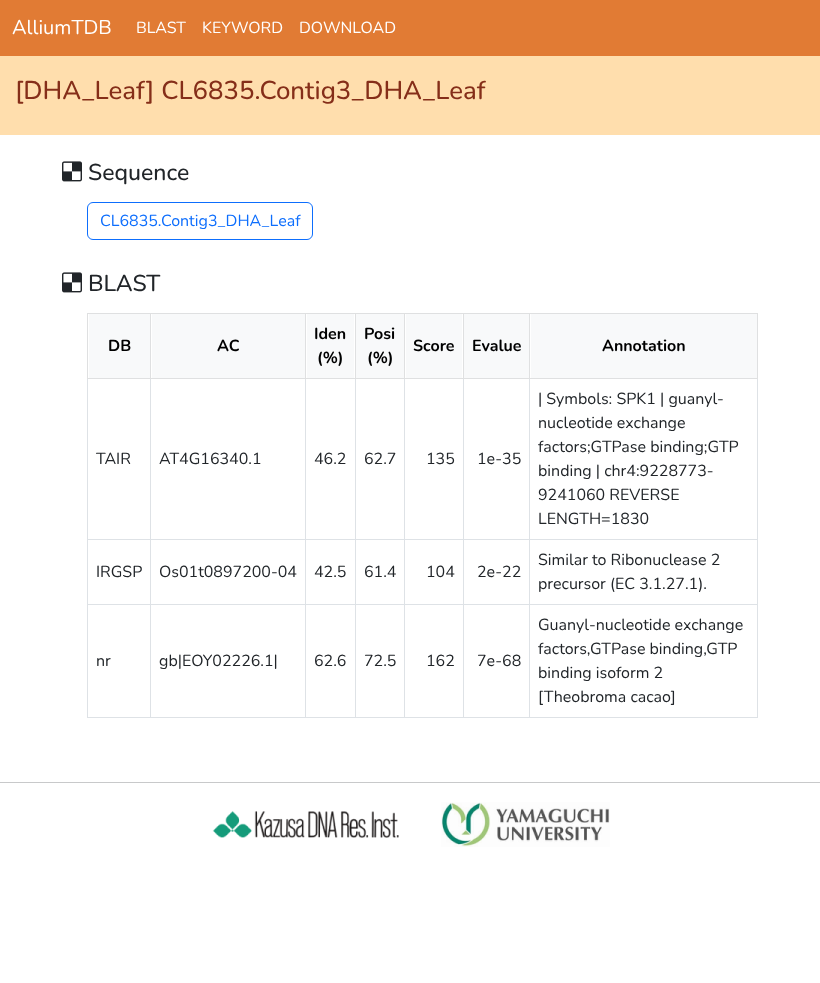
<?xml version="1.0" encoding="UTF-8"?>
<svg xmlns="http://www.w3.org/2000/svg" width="820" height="983">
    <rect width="100%" height="100%" fill="#FFFFFF"/>
    <rect x="0" y="0" width="820" height="56" fill="#E17B34"/>
    <text x="12" y="34" font-family="Nunito" font-size="20" fill="#FFFFFF">AlliumTDB</text>
    <text x="136" y="33" font-family="Nunito" font-size="16" fill="#FFFFFF">BLAST</text>
    <text x="202" y="33" font-family="Nunito" font-size="16" fill="#FFFFFF">KEYWORD</text>
    <text x="299" y="33" font-family="Nunito" font-size="16" fill="#FFFFFF">DOWNLOAD</text>
    <rect x="0" y="56" width="820" height="79" fill="#FFDEAD"/>
    <text x="15" y="99" font-family="Nunito" font-size="25.75" font-weight="500" fill="#852E19">[DHA_Leaf] CL6835.Contig3_DHA_Leaf</text>
    <image x="62" y="161" width="20" height="21" href="img_01.png"/>
    <text x="88" y="180" font-family="Nunito" font-size="23" font-weight="500" fill="#212529">Sequence</text>
    <rect x="87.5" y="202.5" width="225" height="37" rx="5.5" fill="none" stroke="#0D6EFD"/>
    <text x="100" y="226" font-family="Nunito" font-size="16" fill="#0D6EFD">CL6835.Contig3_DHA_Leaf</text>
    <image x="62" y="272" width="20" height="21" href="img_01.png"/>
    <text x="88" y="291" font-family="Nunito" font-size="23" font-weight="500" fill="#212529">BLAST</text>
    <rect x="87" y="313" width="671" height="1" fill="#DFE0E1"/>
    <rect x="87" y="378" width="671" height="1" fill="#DFE0E1"/>
    <rect x="89" y="314" width="61" height="64" fill="#F8F9FA"/>
    <rect x="87" y="539" width="671" height="1" fill="#DEE2E6"/>
    <rect x="87" y="604" width="671" height="1" fill="#DEE2E6"/>
    <rect x="87" y="717" width="671" height="1" fill="#DEE2E6"/>
    <rect x="87" y="378" width="1" height="340" fill="#DEE2E6"/>
    <rect x="87" y="313" width="1" height="66" fill="#DFE0E1"/>
    <text x="108" y="351" font-family="Nunito" font-size="16" font-weight="700" fill="#000000">DB</text>
    <rect x="152" y="314" width="153" height="64" fill="#F8F9FA"/>
    <rect x="150" y="378" width="1" height="340" fill="#DEE2E6"/>
    <rect x="150" y="313" width="1" height="66" fill="#DFE0E1"/>
    <text x="217" y="351" font-family="Nunito" font-size="16" font-weight="700" fill="#000000">AC</text>
    <rect x="307" y="314" width="47" height="64" fill="#F8F9FA"/>
    <rect x="305" y="378" width="1" height="340" fill="#DEE2E6"/>
    <rect x="305" y="313" width="1" height="66" fill="#DFE0E1"/>
    <text x="314" y="339" font-family="Nunito" font-size="16" font-weight="700" fill="#000000">Iden</text>
    <text x="317" y="363" font-family="Nunito" font-size="16" font-weight="700" fill="#000000">(%)</text>
    <rect x="356" y="314" width="48" height="64" fill="#F8F9FA"/>
    <rect x="355" y="378" width="1" height="340" fill="#DEE2E6"/>
    <rect x="355" y="313" width="1" height="66" fill="#DFE0E1"/>
    <text x="364" y="339" font-family="Nunito" font-size="16" font-weight="700" fill="#000000">Posi</text>
    <text x="367" y="363" font-family="Nunito" font-size="16" font-weight="700" fill="#000000">(%)</text>
    <rect x="406" y="314" width="56" height="64" fill="#F8F9FA"/>
    <rect x="404" y="378" width="1" height="340" fill="#DEE2E6"/>
    <rect x="404" y="313" width="1" height="66" fill="#DFE0E1"/>
    <text x="413" y="351" font-family="Nunito" font-size="16" font-weight="700" fill="#000000">Score</text>
    <rect x="464" y="314" width="65" height="64" fill="#F8F9FA"/>
    <rect x="463" y="378" width="1" height="340" fill="#DEE2E6"/>
    <rect x="463" y="313" width="1" height="66" fill="#DFE0E1"/>
    <text x="472" y="351" font-family="Nunito" font-size="16" font-weight="700" fill="#000000">Evalue</text>
    <rect x="531" y="314" width="226" height="64" fill="#F8F9FA"/>
    <rect x="757" y="378" width="1" height="340" fill="#DEE2E6"/>
    <rect x="757" y="313" width="1" height="66" fill="#DFE0E1"/>
    <rect x="529" y="378" width="1" height="340" fill="#DEE2E6"/>
    <rect x="529" y="313" width="1" height="66" fill="#DFE0E1"/>
    <text x="602" y="351" font-family="Nunito" font-size="16" font-weight="700" fill="#000000">Annotation</text>
    <text x="96" y="464" font-family="Nunito" font-size="16" fill="#212529">TAIR</text>
    <text x="159" y="464" font-family="Nunito" font-size="16" fill="#212529">AT4G16340.1</text>
    <text x="314" y="464" font-family="Nunito" font-size="16" fill="#212529">46.2</text>
    <text x="364" y="464" font-family="Nunito" font-size="16" fill="#212529">62.7</text>
    <text x="426" y="464" font-family="Nunito" font-size="16" fill="#212529">135</text>
    <text x="477" y="464" font-family="Nunito" font-size="16" fill="#212529">1e-35</text>
    <text font-family="Nunito" font-size="16" fill="#212529">
        <tspan x="538" y="404">| Symbols: SPK1 | guanyl-</tspan>
        <tspan x="538" y="428">nucleotide exchange</tspan>
        <tspan x="538" y="452">factors;GTPase binding;GTP</tspan>
        <tspan x="538" y="476">binding | chr4:9228773-</tspan>
        <tspan x="538" y="500">9241060 REVERSE</tspan>
        <tspan x="538" y="524">LENGTH=1830</tspan>
    </text>
    <text x="96" y="577" font-family="Nunito" font-size="16" fill="#212529">IRGSP</text>
    <text x="159" y="577" font-family="Nunito" font-size="16" fill="#212529">Os01t0897200-04</text>
    <text x="314" y="577" font-family="Nunito" font-size="16" fill="#212529">42.5</text>
    <text x="364" y="577" font-family="Nunito" font-size="16" fill="#212529">61.4</text>
    <text x="426" y="577" font-family="Nunito" font-size="16" fill="#212529">104</text>
    <text x="477" y="577" font-family="Nunito" font-size="16" fill="#212529">2e-22</text>
    <text font-family="Nunito" font-size="16" fill="#212529">
        <tspan x="538" y="565">Similar to Ribonuclease 2</tspan>
        <tspan x="538" y="589">precursor (EC 3.1.27.1).</tspan>
    </text>
    <text x="96" y="666" font-family="Nunito" font-size="16" fill="#212529">nr</text>
    <text x="159" y="666" font-family="Nunito" font-size="16" fill="#212529">gb|EOY02226.1|</text>
    <text x="314" y="666" font-family="Nunito" font-size="16" fill="#212529">62.6</text>
    <text x="364" y="666" font-family="Nunito" font-size="16" fill="#212529">72.5</text>
    <text x="426" y="666" font-family="Nunito" font-size="16" fill="#212529">162</text>
    <text x="477" y="666" font-family="Nunito" font-size="16" fill="#212529">7e-68</text>
    <text font-family="Nunito" font-size="16" fill="#212529">
        <tspan x="538" y="630">Guanyl-nucleotide exchange</tspan>
        <tspan x="538" y="654">factors,GTPase binding,GTP</tspan>
        <tspan x="538" y="678">binding isoform 2</tspan>
        <tspan x="538" y="702">[Theobroma cacao]</tspan>
    </text>
    <rect x="0" y="782" width="820" height="1" fill="#C8C9CA"/>
    <image x="212" y="811" width="187" height="27" href="img_02.png"/>
    <image x="441" y="802" width="169" height="45" href="img_03.png"/>
</svg>
